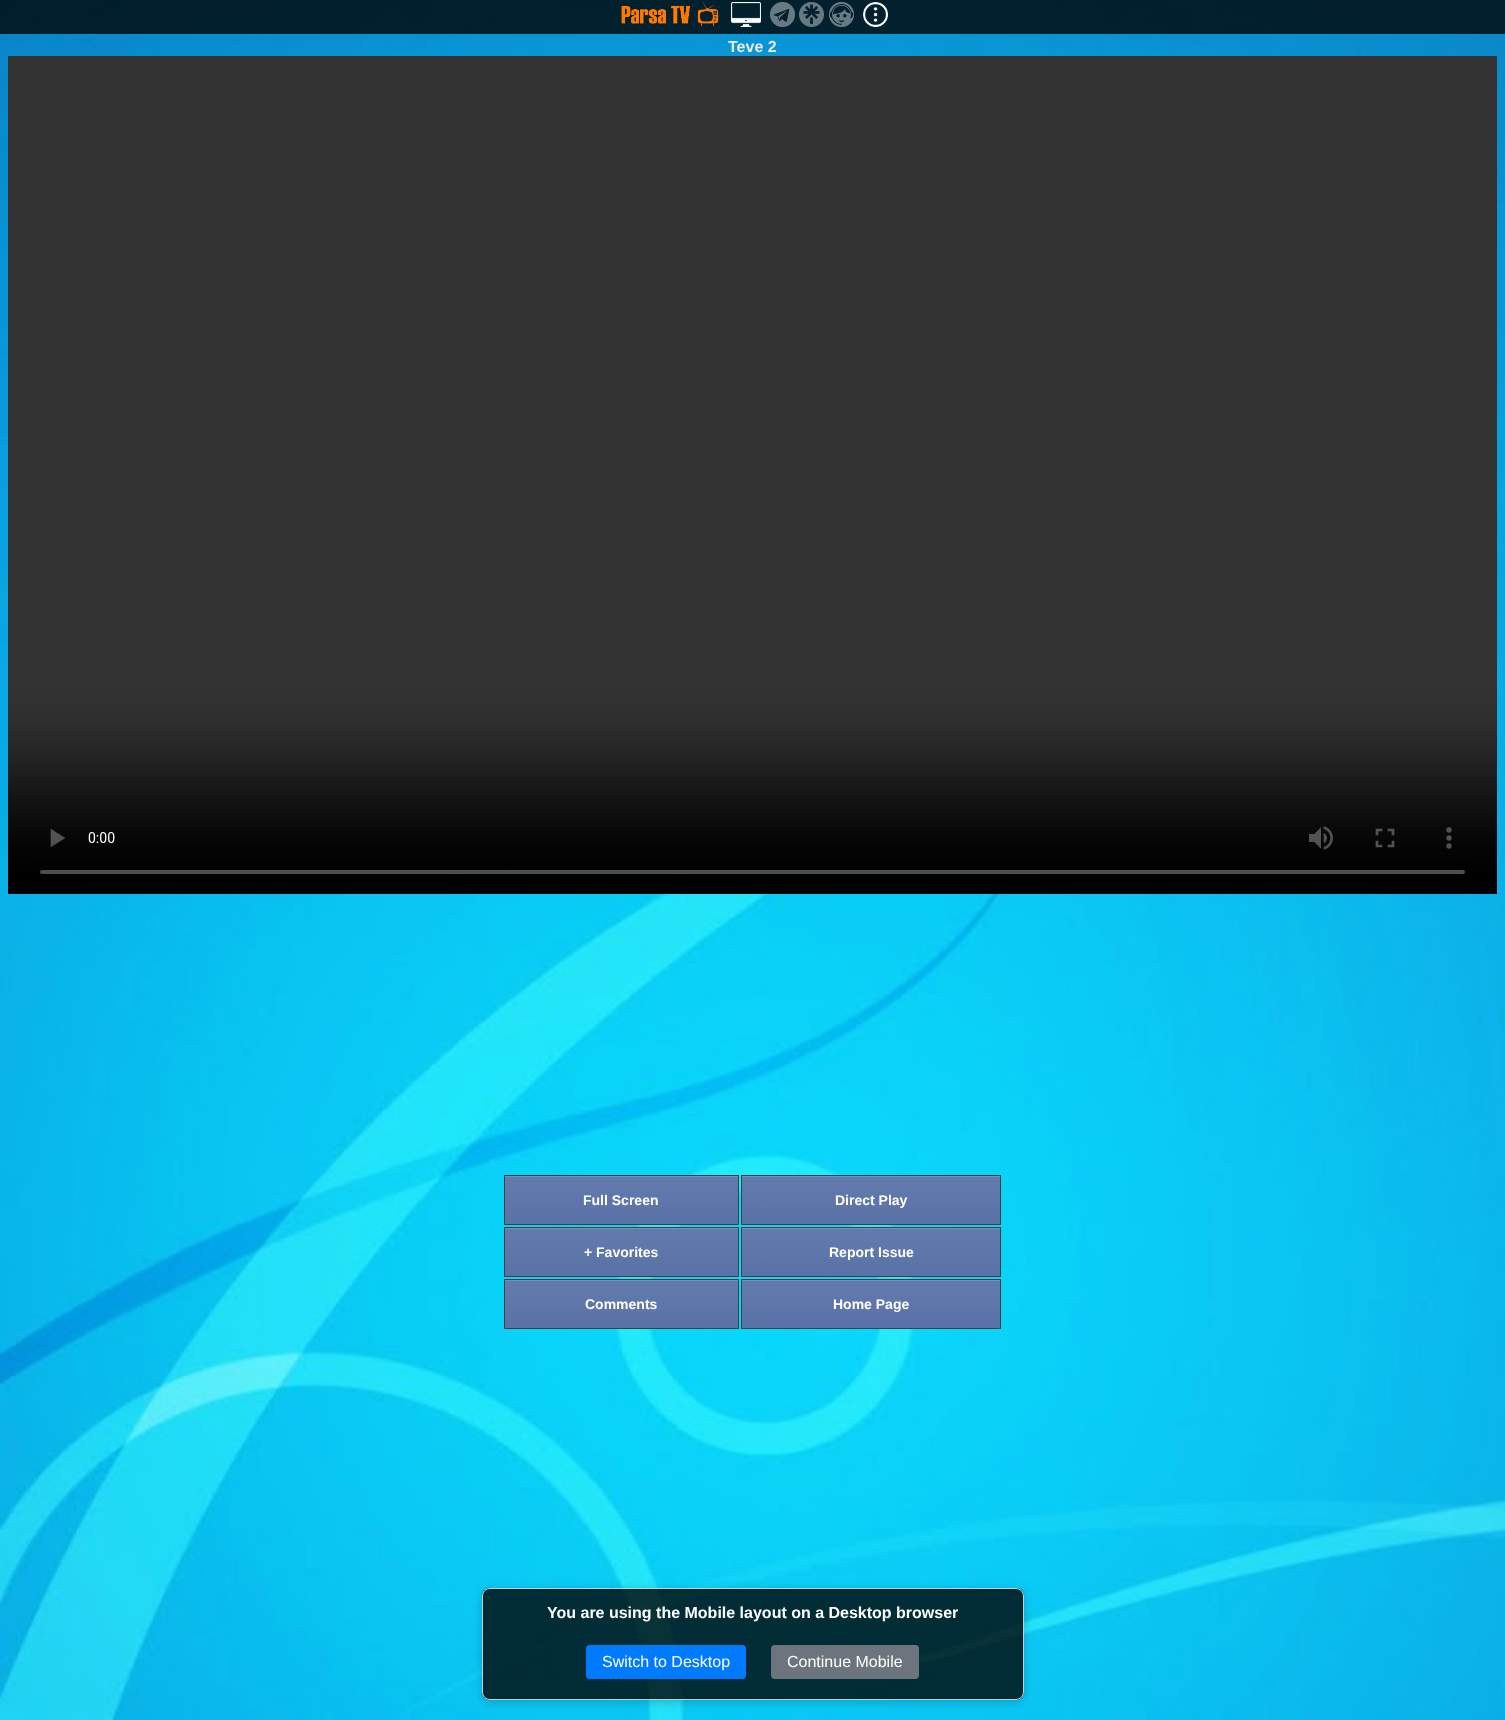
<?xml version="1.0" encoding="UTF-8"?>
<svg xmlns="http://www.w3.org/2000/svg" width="1505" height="1720">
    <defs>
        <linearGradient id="g1" gradientUnits="userSpaceOnUse" x1="622" y1="1176" x2="622" y2="1224"><stop offset="0.05" stop-color="#637AAD"/><stop offset="1" stop-color="#5972A7"/></linearGradient>
        <linearGradient id="g2" gradientUnits="userSpaceOnUse" x1="871" y1="1176" x2="871" y2="1224"><stop offset="0.05" stop-color="#637AAD"/><stop offset="1" stop-color="#5972A7"/></linearGradient>
        <linearGradient id="g3" gradientUnits="userSpaceOnUse" x1="622" y1="1228" x2="622" y2="1276"><stop offset="0.05" stop-color="#637AAD"/><stop offset="1" stop-color="#5972A7"/></linearGradient>
        <linearGradient id="g4" gradientUnits="userSpaceOnUse" x1="871" y1="1228" x2="871" y2="1276"><stop offset="0.05" stop-color="#637AAD"/><stop offset="1" stop-color="#5972A7"/></linearGradient>
        <linearGradient id="g5" gradientUnits="userSpaceOnUse" x1="622" y1="1280" x2="622" y2="1328"><stop offset="0.05" stop-color="#637AAD"/><stop offset="1" stop-color="#5972A7"/></linearGradient>
        <linearGradient id="g6" gradientUnits="userSpaceOnUse" x1="871" y1="1280" x2="871" y2="1328"><stop offset="0.05" stop-color="#637AAD"/><stop offset="1" stop-color="#5972A7"/></linearGradient>
        <clipPath id="clip1"><path d="M 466 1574 H 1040 V 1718 H 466 Z M 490 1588 H 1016 C 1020.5 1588 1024 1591.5 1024 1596 V 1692 C 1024 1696.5 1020.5 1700 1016 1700 H 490 C 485.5 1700 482 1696.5 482 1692 V 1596 C 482 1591.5 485.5 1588 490 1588 Z" clip-rule="evenodd"/></clipPath>
        <filter id="blur1" x="-50%" y="-200%" width="200%" height="500%"><feGaussianBlur stdDeviation="5"/></filter>
    </defs>
    <rect width="100%" height="100%" fill="#FFFFFF"/>
    <image x="0" y="0" width="1505" height="1720" href="img_01.png"/>
    <rect x="0" y="0" width="1505" height="34" fill="#000000" fill-opacity="0.78"/>
    <image x="621" y="2" width="98" height="25" href="img_02.png"/>
    <image x="731" y="2" width="30" height="25" href="img_03.png"/>
    <image x="770" y="2" width="25" height="25" href="img_04.png"/>
    <image x="799" y="2" width="25" height="25" href="img_05.png"/>
    <image x="829" y="2" width="25" height="25" href="img_06.png"/>
    <image x="863" y="2" width="25" height="25" href="img_07.png"/>
    <text x="728" y="52" font-family="Liberation Sans" font-size="16" font-weight="700" fill="#EBEBEB">Teve 2</text>
    <rect x="8" y="874" width="1489" height="20" fill="#000000"/>
    <image x="8" y="56" width="1489" height="818" href="img_08.png"/>
    <rect x="505" y="1177" width="233" height="47" fill="url(#g1)"/>
    <rect x="505" y="1176" width="233" height="1" fill="#7A8EB9"/>
    <rect x="504.5" y="1175.5" width="234" height="49" fill="none" stroke="#3F3F42"/>
    <text x="583" y="1205" font-family="Liberation Sans" font-size="14" font-weight="700" fill="#FFFFFF">Full Screen</text>
    <rect x="742" y="1177" width="258" height="47" fill="url(#g2)"/>
    <rect x="742" y="1176" width="258" height="1" fill="#7A8EB9"/>
    <rect x="741.5" y="1175.5" width="259" height="49" fill="none" stroke="#3F3F42"/>
    <text x="835" y="1205" font-family="Liberation Sans" font-size="14" font-weight="700" fill="#FFFFFF">Direct Play</text>
    <rect x="505" y="1229" width="233" height="47" fill="url(#g3)"/>
    <rect x="505" y="1228" width="233" height="1" fill="#7A8EB9"/>
    <rect x="504.5" y="1227.5" width="234" height="49" fill="none" stroke="#3F3F42"/>
    <text x="584" y="1257" font-family="Liberation Sans" font-size="14" font-weight="700" fill="#FFFFFF">+ Favorites</text>
    <rect x="742" y="1229" width="258" height="47" fill="url(#g4)"/>
    <rect x="742" y="1228" width="258" height="1" fill="#7A8EB9"/>
    <rect x="741.5" y="1227.5" width="259" height="49" fill="none" stroke="#3F3F42"/>
    <text x="829" y="1257" font-family="Liberation Sans" font-size="14" font-weight="700" fill="#FFFFFF">Report Issue</text>
    <rect x="505" y="1281" width="233" height="47" fill="url(#g5)"/>
    <rect x="505" y="1280" width="233" height="1" fill="#7A8EB9"/>
    <rect x="504.5" y="1279.5" width="234" height="49" fill="none" stroke="#3F3F42"/>
    <text x="585" y="1309" font-family="Liberation Sans" font-size="14" font-weight="700" fill="#FFFFFF">Comments</text>
    <rect x="742" y="1281" width="258" height="47" fill="url(#g6)"/>
    <rect x="742" y="1280" width="258" height="1" fill="#7A8EB9"/>
    <rect x="741.5" y="1279.5" width="259" height="49" fill="none" stroke="#3F3F42"/>
    <text x="833" y="1309" font-family="Liberation Sans" font-size="14" font-weight="700" fill="#FFFFFF">Home Page</text>
    <g clip-path="url(#clip1)">
        <rect x="482" y="1590" width="542" height="112" rx="8" fill="#000000" fill-opacity="0.2" filter="url(#blur1)"/>
    </g>
    <image x="482" y="1588" width="542" height="112" href="img_09.png"/>
    <rect x="482.5" y="1588.5" width="541" height="111" rx="7.5" fill="none" stroke="#CCCCCC"/>
    <text x="547" y="1618" font-family="Liberation Sans" font-size="16" font-weight="700" fill="#FFFFFF">You are using the Mobile layout on a Desktop browser</text>
    <rect x="586" y="1645" width="160" height="34" rx="4" fill="#007BFF"/>
    <text x="602" y="1667" font-family="Liberation Sans" font-size="16" fill="#FFFFFF">Switch to Desktop</text>
    <rect x="771" y="1645" width="148" height="34" rx="4" fill="#6C757D"/>
    <text x="787" y="1667" font-family="Liberation Sans" font-size="16" fill="#FFFFFF">Continue Mobile</text>
</svg>
